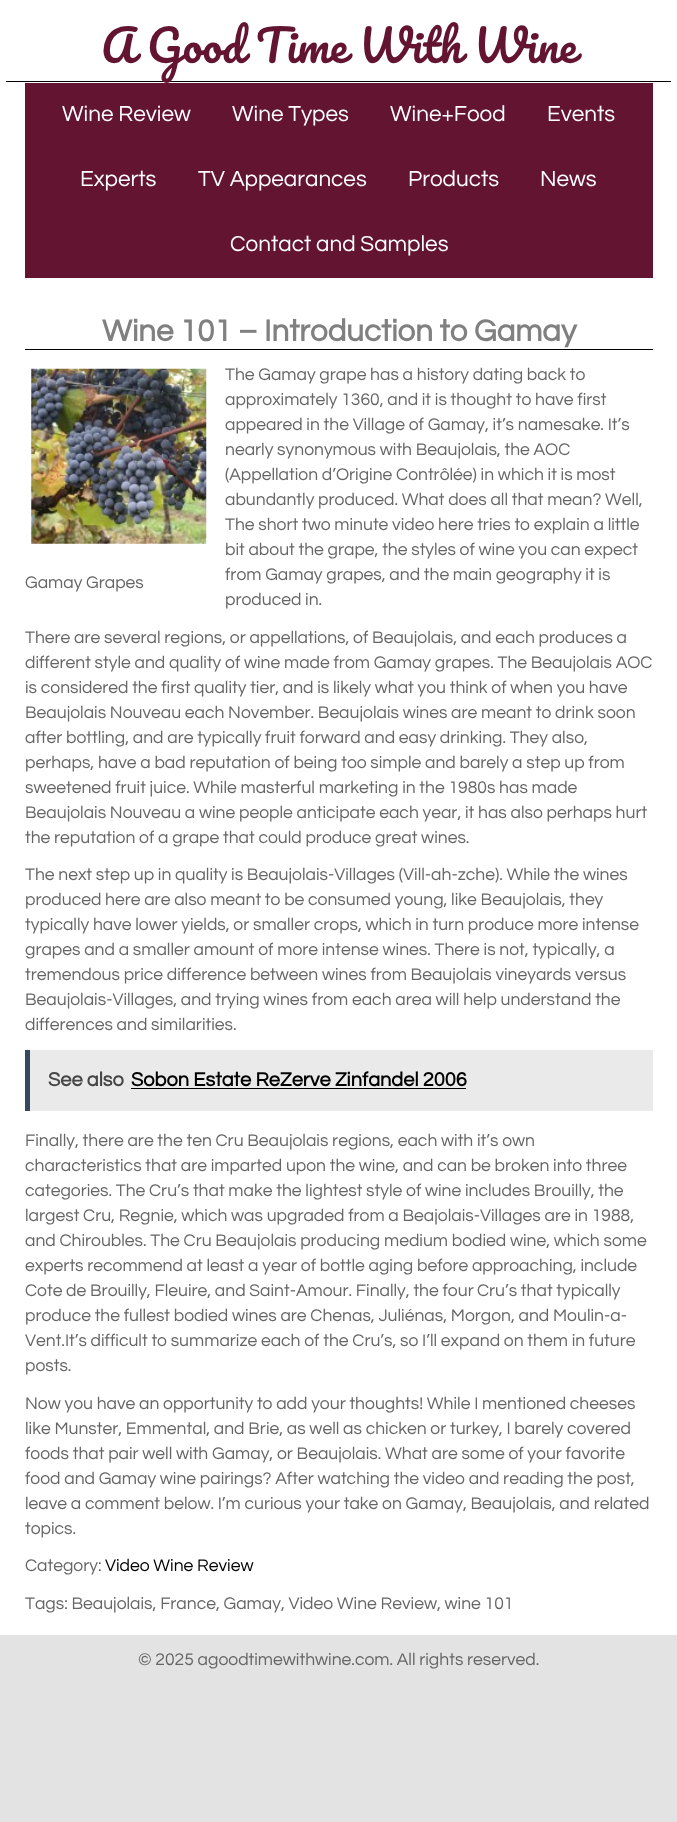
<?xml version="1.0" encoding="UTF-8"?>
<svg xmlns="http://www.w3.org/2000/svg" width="677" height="1822">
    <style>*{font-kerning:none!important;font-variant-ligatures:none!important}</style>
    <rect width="100%" height="100%" fill="#E3E3E3"/>
    <rect x="0" y="0" width="677" height="1635" fill="#FFFFFF"/>
    <rect x="6" y="81" width="665" height="1" fill="#000000"/>
    <text x="101" y="63" font-family="Pacifico" font-size="43.75" fill="#631431">A Good Time With Wine</text>
    <rect x="25" y="83" width="628" height="195" fill="#631431"/>
    <text x="62" y="121" font-family="Questrial" font-size="22.5" fill="#FFFFFF">Wine Review</text>
    <text x="232" y="121" font-family="Questrial" font-size="22.5" fill="#FFFFFF">Wine Types</text>
    <text x="390" y="121" font-family="Questrial" font-size="22.5" fill="#FFFFFF">Wine+Food</text>
    <text x="547" y="121" font-family="Questrial" font-size="22.5" fill="#FFFFFF">Events</text>
    <text x="80" y="186" font-family="Questrial" font-size="22.5" fill="#FFFFFF">Experts</text>
    <text x="198" y="186" font-family="Questrial" font-size="22.5" fill="#FFFFFF">TV Appearances</text>
    <text x="408" y="186" font-family="Questrial" font-size="22.5" fill="#FFFFFF">Products</text>
    <text x="540" y="186" font-family="Questrial" font-size="22.5" fill="#FFFFFF">News</text>
    <text x="230" y="251" font-family="Questrial" font-size="22.5" fill="#FFFFFF">Contact and Samples</text>
    <rect x="25" y="349" width="628" height="1" fill="#000000"/>
    <text x="102" y="341" font-family="Questrial" font-size="31.25" font-weight="700" fill="#808080">Wine 101 – Introduction to Gamay</text>
    <image x="31" y="368" width="176" height="176" href="img_01.png"/>
    <text x="25" y="588" font-family="Questrial" font-size="17.5" fill="#666666">Gamay Grapes</text>
    <text font-family="Questrial" font-size="17.5" fill="#666666">
        <tspan x="225" y="380">The Gamay grape has a history dating back to</tspan>
        <tspan x="225" y="405">approximately 1360, and it is thought to have first</tspan>
        <tspan x="225" y="430">appeared in the Village of Gamay, it’s namesake. It’s</tspan>
        <tspan x="225" y="455">nearly synonymous with Beaujolais, the AOC</tspan>
        <tspan x="225" y="480">(Appellation d’Origine Contrôlée) in which it is most</tspan>
        <tspan x="225" y="505">abundantly produced. What does all that mean? Well,</tspan>
        <tspan x="225" y="530">The short two minute video here tries to explain a little</tspan>
        <tspan x="225" y="555">bit about the grape, the styles of wine you can expect</tspan>
        <tspan x="225" y="580">from Gamay grapes, and the main geography it is</tspan>
        <tspan x="225" y="605">produced in.</tspan>
    </text>
    <text font-family="Questrial" font-size="17.5" fill="#666666">
        <tspan x="25" y="643">There are several regions, or appellations, of Beaujolais, and each produces a</tspan>
        <tspan x="25" y="668">different style and quality of wine made from Gamay grapes. The Beaujolais AOC</tspan>
        <tspan x="25" y="693">is considered the first quality tier, and is likely what you think of when you have</tspan>
        <tspan x="25" y="718">Beaujolais Nouveau each November. Beaujolais wines are meant to drink soon</tspan>
        <tspan x="25" y="743">after bottling, and are typically fruit forward and easy drinking. They also,</tspan>
        <tspan x="25" y="768">perhaps, have a bad reputation of being too simple and barely a step up from</tspan>
        <tspan x="25" y="793">sweetened fruit juice. While masterful marketing in the 1980s has made</tspan>
        <tspan x="25" y="818">Beaujolais Nouveau a wine people anticipate each year, it has also perhaps hurt</tspan>
        <tspan x="25" y="843">the reputation of a grape that could produce great wines.</tspan>
    </text>
    <text font-family="Questrial" font-size="17.5" fill="#666666">
        <tspan x="25" y="880">The next step up in quality is Beaujolais-Villages (Vill-ah-zche). While the wines</tspan>
        <tspan x="25" y="905">produced here are also meant to be consumed young, like Beaujolais, they</tspan>
        <tspan x="25" y="930">typically have lower yields, or smaller crops, which in turn produce more intense</tspan>
        <tspan x="25" y="955">grapes and a smaller amount of more intense wines. There is not, typically, a</tspan>
        <tspan x="25" y="980">tremendous price difference between wines from Beaujolais vineyards versus</tspan>
        <tspan x="25" y="1005">Beaujolais-Villages, and trying wines from each area will help understand the</tspan>
        <tspan x="25" y="1030">differences and similarities.</tspan>
    </text>
    <rect x="30" y="1050" width="623" height="61" fill="#EAEAEA"/>
    <rect x="25" y="1050" width="5" height="61" fill="#34495E"/>
    <text x="48" y="1086" font-family="Questrial" font-size="20" font-weight="700" fill="#464646">See also</text>
    <text x="131" y="1086" font-family="Questrial" font-size="20" font-weight="700" fill="#000000">Sobon Estate ReZerve Zinfandel 2006</text>
    <rect x="131" y="1088" width="335" height="1" fill="#000000"/>
    <text font-family="Questrial" font-size="17.5" fill="#666666">
        <tspan x="25" y="1146">Finally, there are the ten Cru Beaujolais regions, each with it’s own</tspan>
        <tspan x="25" y="1171">characteristics that are imparted upon the wine, and can be broken into three</tspan>
        <tspan x="25" y="1196">categories. The Cru’s that make the lightest style of wine includes Brouilly, the</tspan>
        <tspan x="25" y="1221">largest Cru, Regnie, which was upgraded from a Beajolais-Villages are in 1988,</tspan>
        <tspan x="25" y="1246">and Chiroubles. The Cru Beaujolais producing medium bodied wine, which some</tspan>
        <tspan x="25" y="1271">experts recommend at least a year of bottle aging before approaching, include</tspan>
        <tspan x="25" y="1296">Cote de Brouilly, Fleuire, and Saint-Amour. Finally, the four</tspan>
    </text>
    <text x="477" y="1296" font-family="Questrial" font-size="17.5" fill="#666666">Cru’s that typically</text>
    <text font-family="Questrial" font-size="17.5" fill="#666666">
        <tspan x="25" y="1321">produce the fullest bodied wines are Chenas, Juliénas, Morgon, and Moulin-a-</tspan>
        <tspan x="25" y="1346">Vent.It’s difficult to summarize each of the Cru’s, so I’ll expand on them in future</tspan>
        <tspan x="25" y="1371">posts.</tspan>
    </text>
    <text font-family="Questrial" font-size="17.5" fill="#666666">
        <tspan x="25" y="1409">Now you have an opportunity to add your thoughts! While I mentioned cheeses</tspan>
        <tspan x="25" y="1434">like Munster, Emmental, and Brie, as well as chicken or turkey, I barely covered</tspan>
        <tspan x="25" y="1459">foods that pair well with Gamay, or Beaujolais. What are some of your favorite</tspan>
        <tspan x="25" y="1484">food and Gamay wine pairings? After watching the video and reading the post,</tspan>
        <tspan x="25" y="1509">leave a comment below. I’m curious your take on Gamay, Beaujolais, and related</tspan>
        <tspan x="25" y="1534">topics.</tspan>
    </text>
    <text x="25" y="1571" font-family="Questrial" font-size="17.5" fill="#666666">Category:</text>
    <text x="105" y="1571" font-family="Questrial" font-size="17.5" fill="#000000">Video Wine Review</text>
    <text x="25" y="1609" font-family="Questrial" font-size="17.5" fill="#666666">Tags: Beaujolais, France, Gamay, Video Wine Review, wine 101</text>
    <text x="138" y="1665" font-family="Questrial" font-size="17.5" fill="#666666">© 2025 agoodtimewithwine.com. All rights reserved.</text>
</svg>
